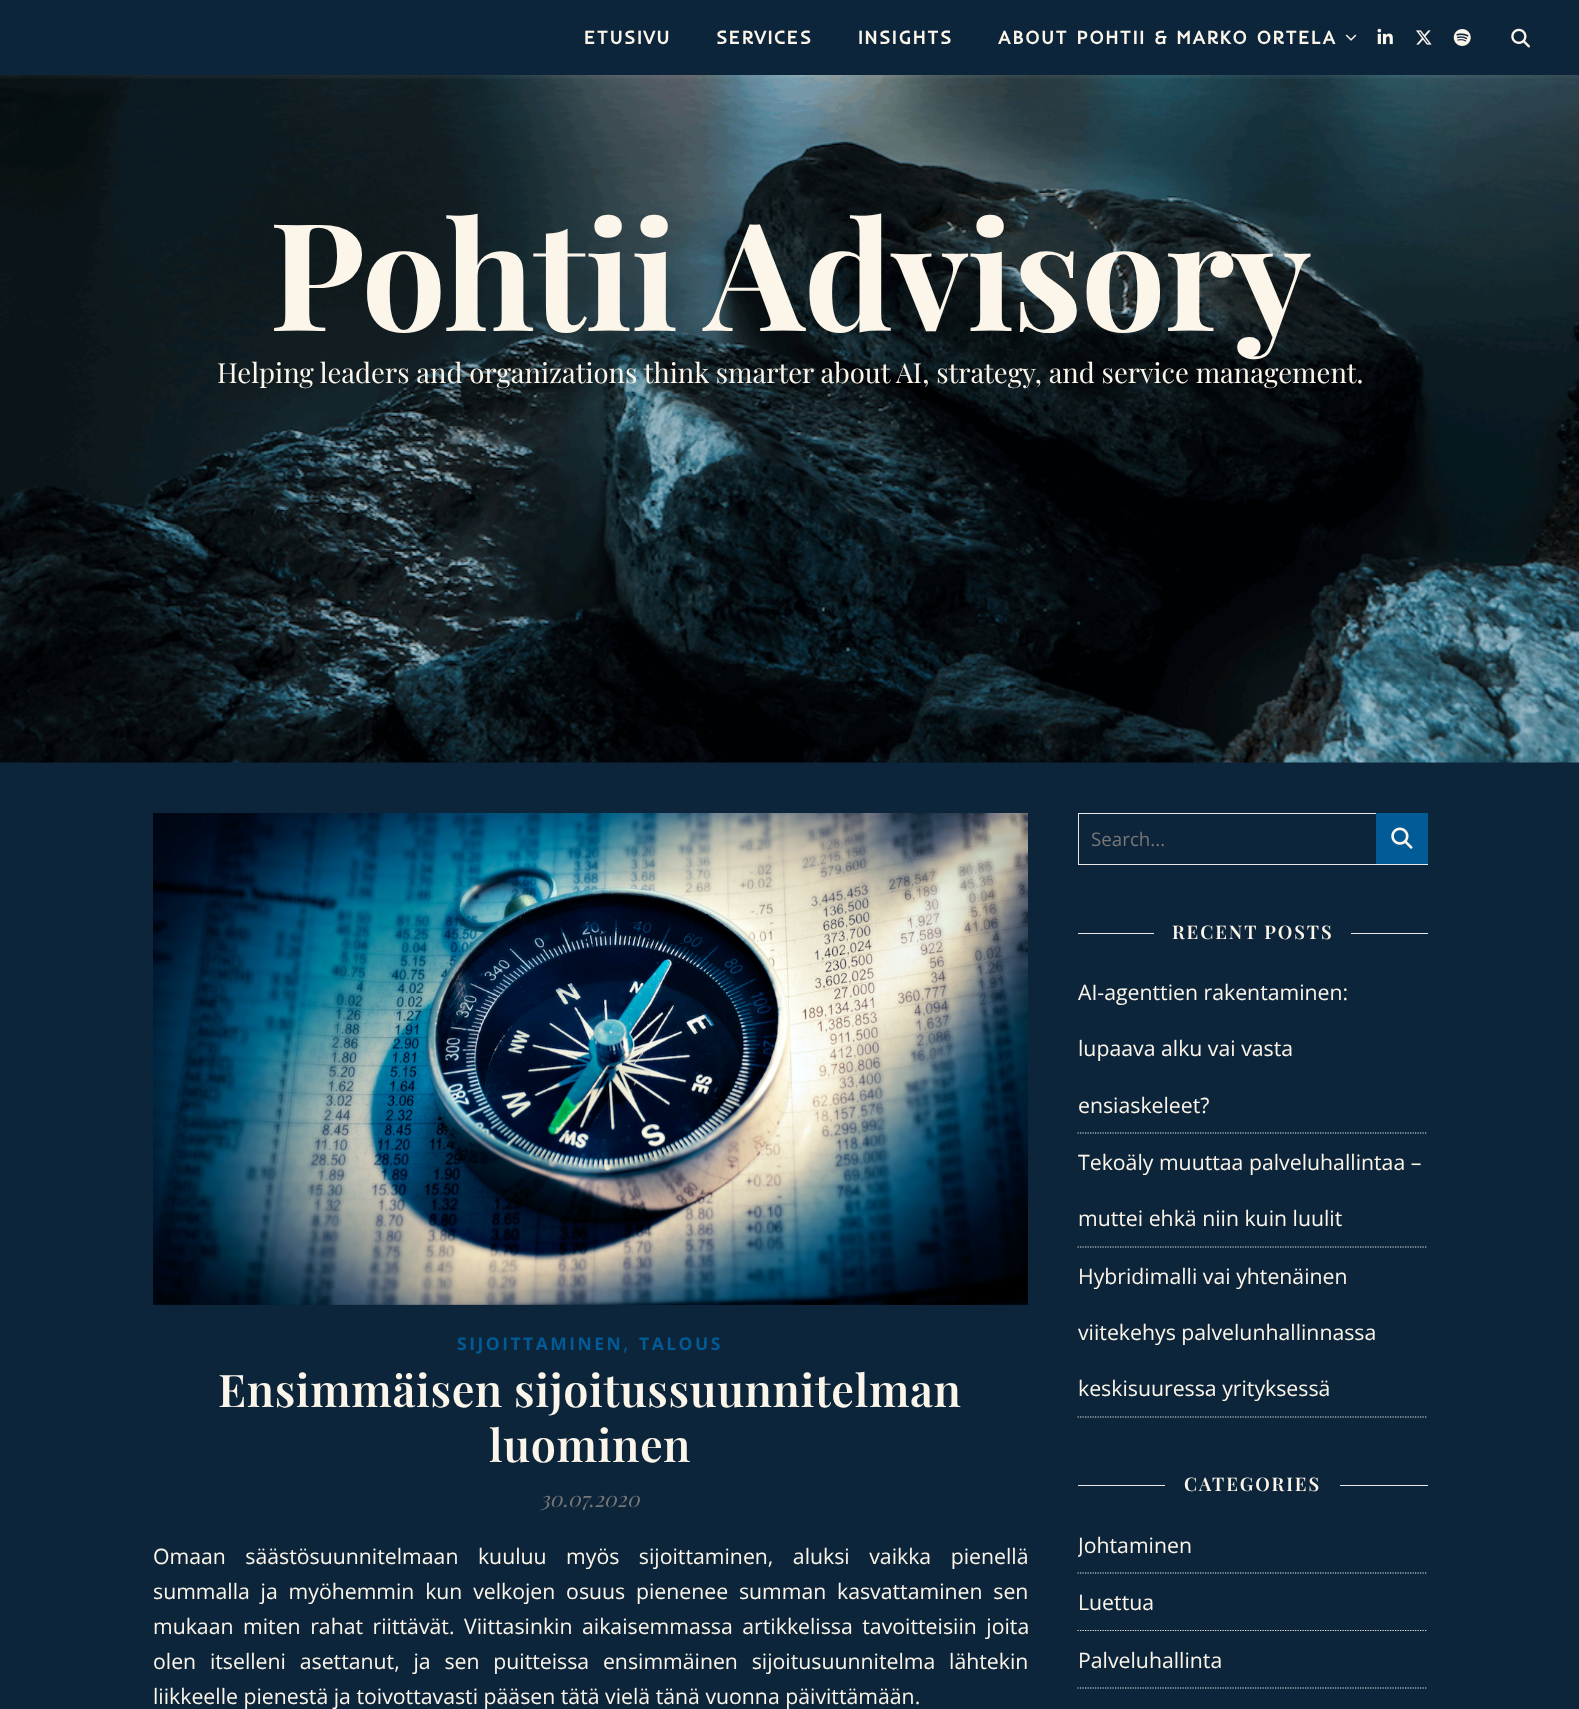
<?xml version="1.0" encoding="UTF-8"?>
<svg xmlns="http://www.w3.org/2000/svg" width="1579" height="1709">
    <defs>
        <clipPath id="clip1"><rect x="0" y="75" width="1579" height="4"/></clipPath>
        <filter id="blur1" x="-50%" y="-200%" width="200%" height="500%"><feGaussianBlur stdDeviation="3"/></filter>
        <clipPath id="clip2"><rect x="1078" y="915" width="350" height="503"/></clipPath>
        <clipPath id="clip3"><rect x="1078" y="1516" width="113" height="57"/></clipPath>
    </defs>
    <rect width="100%" height="100%" fill="#0D253A"/>
    <image x="0" y="75" width="1579" height="688" href="img_08.png"/>
    <g clip-path="url(#clip1)">
        <rect x="0" y="1" width="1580" height="75" fill="#FBF5EA" fill-opacity="0.1" filter="url(#blur1)"/>
    </g>
    <text x="584" y="44" font-family="Inder" font-size="18.75" font-weight="700" letter-spacing="1.9" fill="#FBF5EA">ETUSIVU</text>
    <text x="716" y="44" font-family="Inder" font-size="18.75" font-weight="700" letter-spacing="1.9" fill="#FBF5EA">SERVICES</text>
    <text x="858" y="44" font-family="Inder" font-size="18.75" font-weight="700" letter-spacing="1.9" fill="#FBF5EA">INSIGHTS</text>
    <text x="998" y="44" font-family="Inder" font-size="18.75" font-weight="700" letter-spacing="1.9" fill="#FBF5EA">ABOUT POHTII &amp; MARKO ORTELA</text>
    <image x="1345" y="34" width="12" height="7" href="img_01.png"/>
    <image x="1377" y="28" width="16" height="17" href="img_02.png"/>
    <image x="1416" y="30" width="16" height="15" href="img_03.png"/>
    <image x="1453" y="29" width="18" height="17" href="img_04.png"/>
    <image x="1511" y="28" width="19" height="20" href="img_05.png"/>
    <text x="269" y="331" font-family="Playfair Display" font-size="150" font-weight="700" letter-spacing="-1.25" fill="#FBF5EA">Pohtii Advisory</text>
    <text x="217" y="383" font-family="Playfair Display" font-size="27.5" fill="#FBF5EA">Helping leaders and organizations think smarter about AI, strategy, and service management.</text>
    <image x="153" y="813" width="875" height="492" href="img_06.png"/>
    <text x="457" y="1350" font-family="Open Sans" font-size="17.5" font-weight="700" letter-spacing="2.5" fill="#005B96">SIJOITTAMINEN</text>
    <text x="623" y="1350" font-family="Open Sans" font-size="21.25" fill="#005B96">,</text>
    <text x="639" y="1350" font-family="Open Sans" font-size="17.5" font-weight="700" letter-spacing="2.5" fill="#005B96">TALOUS</text>
    <text x="218" y="1407" font-family="Playfair Display" font-size="45" font-weight="600" letter-spacing="0.6" fill="#FBF5EA">Ensimmäisen sijoitussuunnitelman</text>
    <text x="489" y="1462" font-family="Playfair Display" font-size="45" font-weight="600" letter-spacing="0.6" fill="#FBF5EA">luominen</text>
    <text x="540" y="1507" font-family="Playfair Display" font-size="21.25" font-style="italic" fill="#777777">30.07.2020</text>
    <text font-family="Open Sans" font-size="21.25" fill="#FBF5EA">
        <tspan x="153" y="1564" word-spacing="14">Omaan säästösuunnitelmaan kuuluu myös sijoittaminen, aluksi vaikka pienellä</tspan>
        <tspan x="153" y="1599" word-spacing="5.25">summalla ja myöhemmin kun velkojen osuus pienenee summan kasvattaminen sen</tspan>
        <tspan x="153" y="1634" word-spacing="4">mukaan miten rahat riittävät. Viittasinkin aikaisemmassa artikkelissa tavoitteisiin joita</tspan>
        <tspan x="153" y="1669" word-spacing="8.25">olen itselleni asettanut, ja sen puitteissa ensimmäinen sijoitusuunnitelma lähtekin</tspan>
        <tspan x="153" y="1704">liikkeelle pienestä ja toivottavasti pääsen tätä vielä tänä vuonna päivittämään.</tspan>
    </text>
    <rect x="1078.5" y="813.5" width="349" height="51" fill="none" stroke="#EAEAEA"/>
    <text x="1091" y="846" font-family="Open Sans" font-size="18.75" fill="#777777">Search...</text>
    <rect x="1376" y="813" width="52" height="51" fill="#005B96"/>
    <image x="1391" y="827" width="22" height="22" href="img_07.png"/>
    <rect x="1078" y="933" width="76" height="1" fill="#EAEAEA"/>
    <text x="1172" y="939" font-family="Playfair Display" font-size="18.75" font-weight="600" letter-spacing="1.9" fill="#FBF5EA">RECENT POSTS</text>
    <rect x="1351" y="933" width="77" height="1" fill="#EAEAEA"/>
    <path d="M 1077.5 1133 H 1427.5" fill="none" stroke="#EAEAEA" stroke-width="1.2" stroke-dasharray="1.25 1.25"/>
    <text x="1078" y="1000" font-family="Open Sans" font-size="21.25" fill="#FBF5EA">AI-agenttien rakentaminen:</text>
    <text x="1078" y="1056" font-family="Open Sans" font-size="21.25" fill="#FBF5EA">lupaava alku vai vasta</text>
    <text x="1078" y="1113" font-family="Open Sans" font-size="21.25" fill="#FBF5EA">ensiaskeleet?</text>
    <path d="M 1077.5 1247 H 1427.5" fill="none" stroke="#EAEAEA" stroke-width="1.2" stroke-dasharray="1.25 1.25"/>
    <g clip-path="url(#clip2)">
        <text x="1078" y="1170" font-family="Open Sans" font-size="21.25" fill="#FBF5EA">Tekoäly muuttaa palveluhallintaa –</text>
    </g>
    <text x="1078" y="1226" font-family="Open Sans" font-size="21.25" fill="#FBF5EA">muttei ehkä niin kuin luulit</text>
    <path d="M 1077.5 1417 H 1427.5" fill="none" stroke="#EAEAEA" stroke-width="1.2" stroke-dasharray="1.25 1.25"/>
    <text x="1078" y="1284" font-family="Open Sans" font-size="21.25" fill="#FBF5EA">Hybridimalli vai yhtenäinen</text>
    <text x="1078" y="1340" font-family="Open Sans" font-size="21.25" fill="#FBF5EA">viitekehys palvelunhallinnassa</text>
    <text x="1078" y="1396" font-family="Open Sans" font-size="21.25" fill="#FBF5EA">keskisuuressa yrityksessä</text>
    <rect x="1078" y="1485" width="87" height="1" fill="#EAEAEA"/>
    <text x="1184" y="1491" font-family="Playfair Display" font-size="18.75" font-weight="600" letter-spacing="1.9" fill="#FBF5EA">CATEGORIES</text>
    <rect x="1340" y="1485" width="88" height="1" fill="#EAEAEA"/>
    <path d="M 1077.5 1573 H 1427.5" fill="none" stroke="#EAEAEA" stroke-width="1.2" stroke-dasharray="1.25 1.25"/>
    <g clip-path="url(#clip3)">
        <text x="1078" y="1553" font-family="Open Sans" font-size="21.25" fill="#FBF5EA">Johtaminen</text>
    </g>
    <path d="M 1077.5 1630.5 H 1427.5" fill="none" stroke="#EAEAEA" stroke-width="1.2" stroke-dasharray="1.25 1.25"/>
    <text x="1078" y="1610" font-family="Open Sans" font-size="21.25" fill="#FBF5EA">Luettua</text>
    <path d="M 1077.5 1688 H 1427.5" fill="none" stroke="#EAEAEA" stroke-width="1.2" stroke-dasharray="1.25 1.25"/>
    <text x="1078" y="1668" font-family="Open Sans" font-size="21.25" fill="#FBF5EA">Palveluhallinta</text>
</svg>
